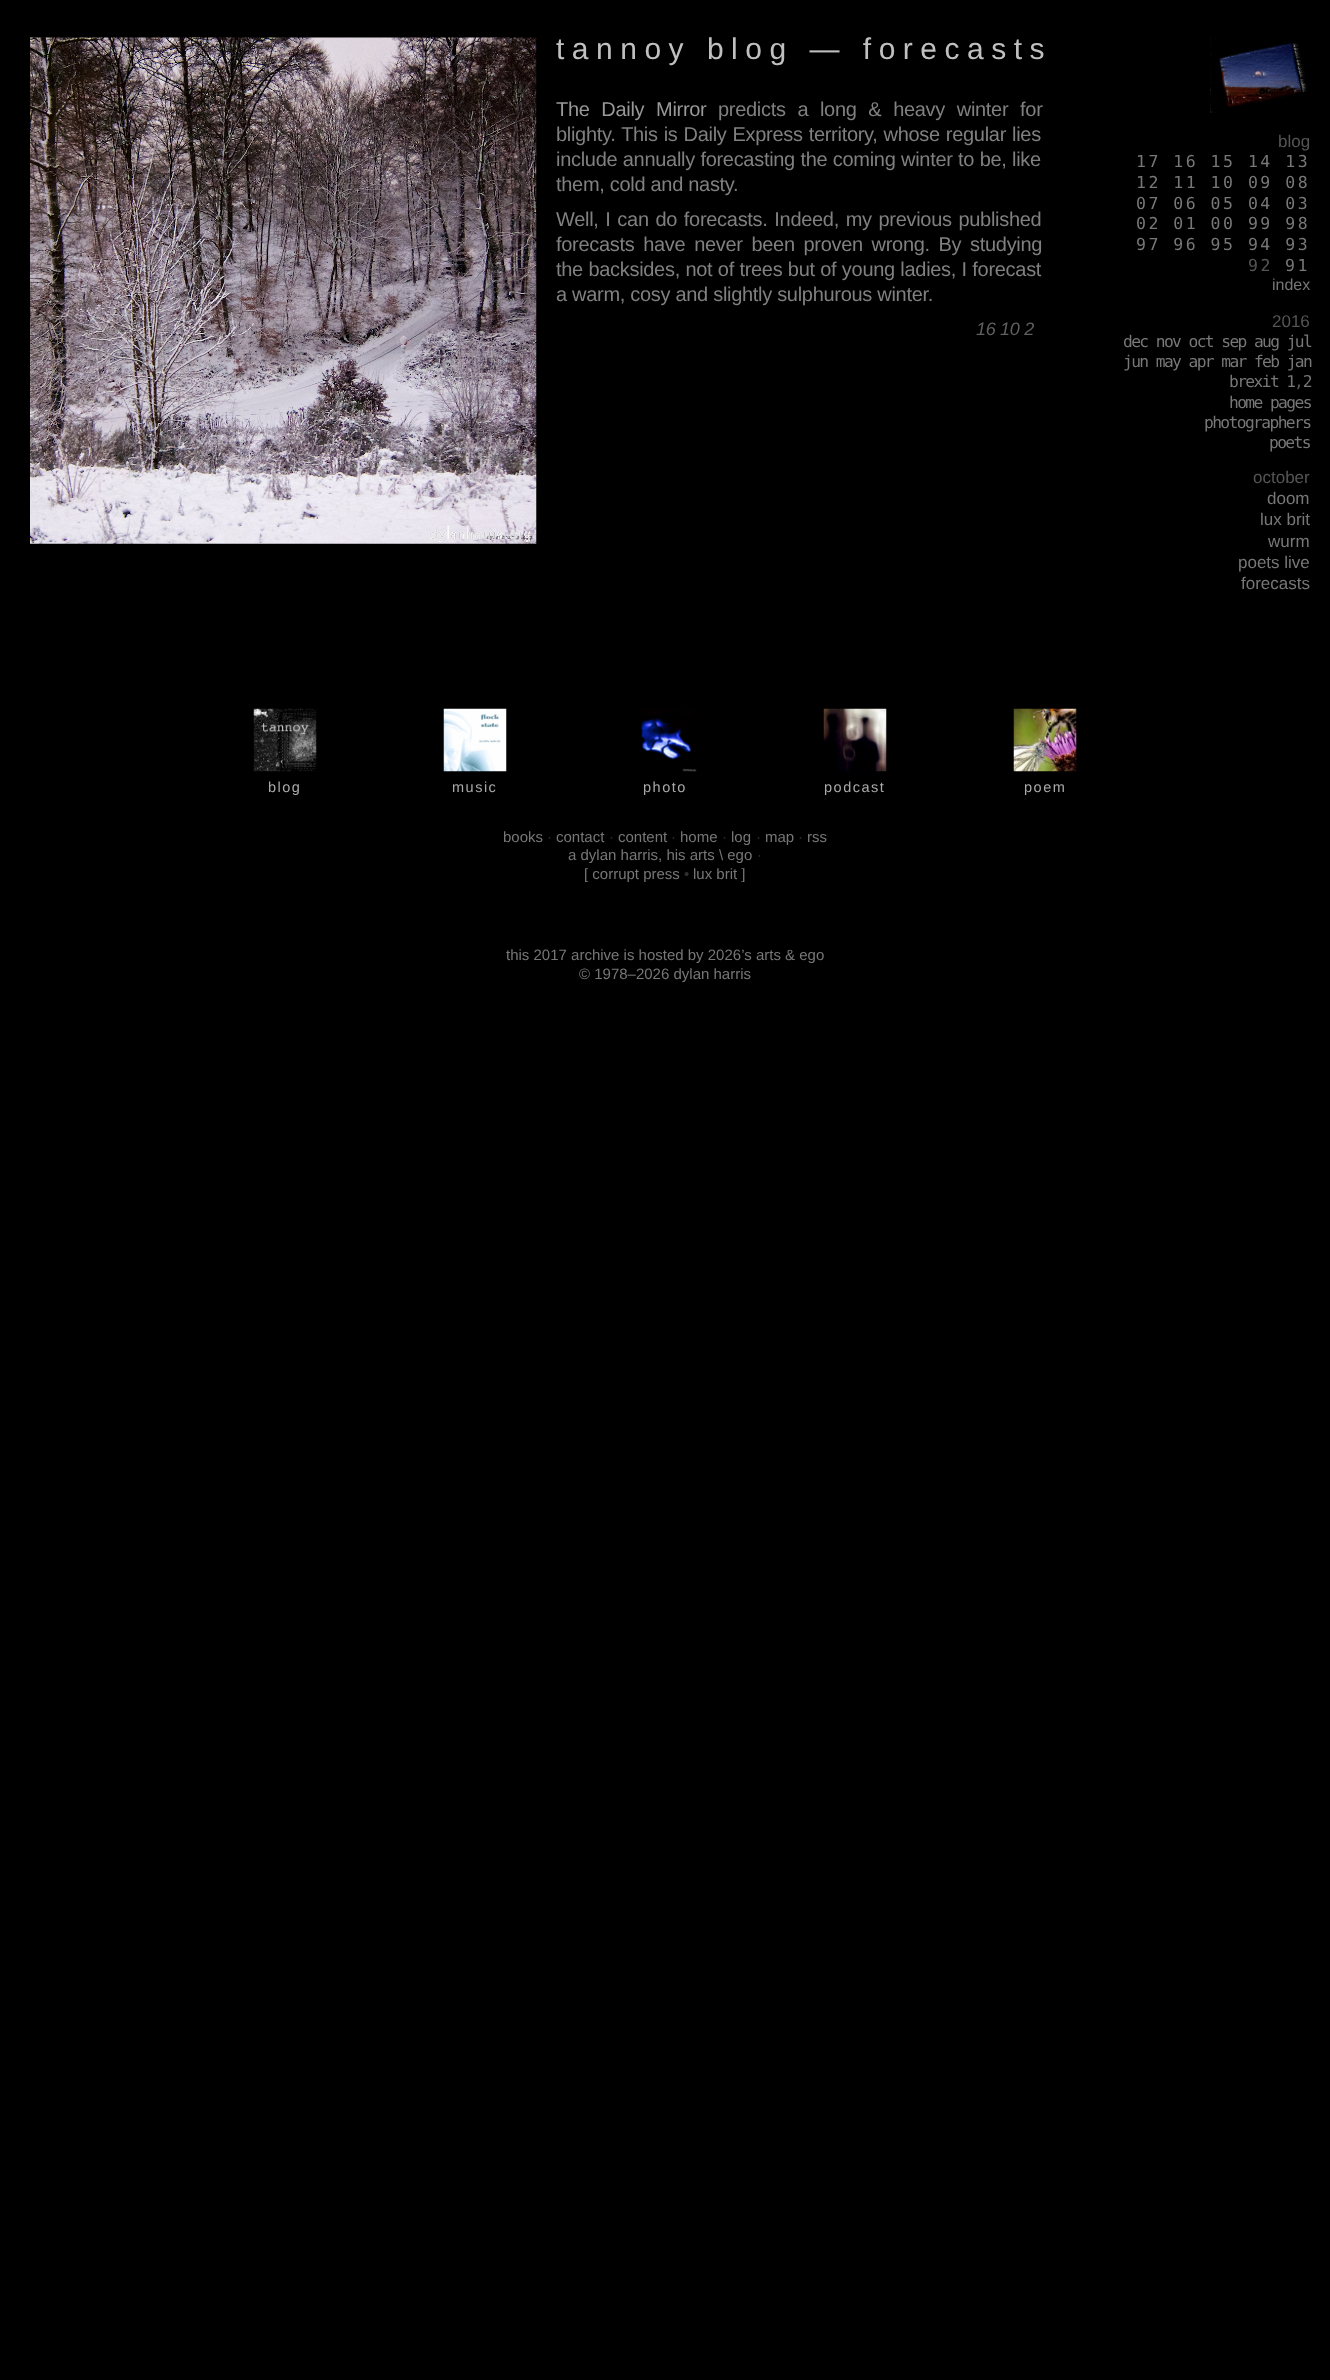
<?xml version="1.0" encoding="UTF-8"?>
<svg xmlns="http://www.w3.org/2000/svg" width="1330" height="2380">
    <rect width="100%" height="100%" fill="#000000"/>
    <image x="30" y="37" width="507" height="507" href="img_01.png"/>
    <text x="556" y="59" font-family="Liberation Sans" font-size="30" letter-spacing="7.5" fill="#C0C0C0">tannoy blog — forecasts</text>
    <text x="556" y="116" word-spacing="6.5" font-family="Liberation Sans" font-size="20" letter-spacing="-0.3" fill="#989898">The Daily Mirror</text>
    <text x="718" y="116" word-spacing="6.5" font-family="Liberation Sans" font-size="20" letter-spacing="-0.3" fill="#808080">predicts a long &amp; heavy winter for</text>
    <text font-family="Liberation Sans" font-size="20" letter-spacing="-0.3" fill="#808080">
        <tspan x="556" y="141" word-spacing="0.75">blighty. This is Daily Express territory, whose regular lies</tspan>
        <tspan x="556" y="166" word-spacing="0.25">include annually forecasting the coming winter to be, like</tspan>
        <tspan x="556" y="191">them, cold and nasty.</tspan>
        <tspan x="556" y="226" word-spacing="1.5">Well, I can do forecasts. Indeed, my previous published</tspan>
        <tspan x="556" y="251" word-spacing="3.5">forecasts have never been proven wrong. By studying</tspan>
        <tspan x="556" y="276" word-spacing="0.25">the backsides, not of trees but of young ladies, I forecast</tspan>
        <tspan x="556" y="301">a warm, cosy and slightly sulphurous winter.</tspan>
    </text>
    <text x="976" y="335" font-family="Liberation Sans" font-size="18" font-style="italic" letter-spacing="-0.3" fill="#606060">16 10 2</text>
    <image x="1210" y="37" width="97" height="76" href="img_02.png"/>
    <text x="1278" y="147" font-family="Liberation Sans" font-size="17" fill="#555555">blog</text>
    <text font-family="DejaVu Sans Mono" font-size="16.5" letter-spacing="2.5" fill="#777777">
        <tspan x="1136" y="167">17 16 15 14 13</tspan>
        <tspan x="1136" y="188">12 11 10 09 08</tspan>
        <tspan x="1136" y="209">07 06 05 04 03</tspan>
        <tspan x="1136" y="229">02 01 00 99 98</tspan>
        <tspan x="1136" y="250">97 96 95 94 93</tspan>
    </text>
    <text x="1248" y="271" font-family="DejaVu Sans Mono" font-size="16.5" letter-spacing="2.5" fill="#555555">92</text>
    <text x="1285" y="271" font-family="DejaVu Sans Mono" font-size="16.5" letter-spacing="2.5" fill="#777777">91</text>
    <text x="1272" y="290" font-family="Liberation Sans" font-size="16" fill="#777777">index</text>
    <text x="1272" y="327" font-family="Liberation Sans" font-size="17" fill="#555555">2016</text>
    <text font-family="DejaVu Sans Mono" font-size="16.25" letter-spacing="-1.6" fill="#777777">
        <tspan x="1123" y="347">dec nov oct sep aug jul</tspan>
        <tspan x="1123" y="367">jun may apr mar feb jan</tspan>
    </text>
    <text x="1229" y="387" font-family="DejaVu Sans Mono" font-size="16.25" letter-spacing="-1.6" fill="#777777">brexit 1 2</text>
    <text x="1294" y="387" font-family="DejaVu Sans Mono" font-size="16.25" letter-spacing="-1.6" fill="#555555">,</text>
    <text x="1229" y="408" font-family="DejaVu Sans Mono" font-size="16.25" letter-spacing="-1.6" fill="#777777">home pages</text>
    <text x="1204" y="428" font-family="DejaVu Sans Mono" font-size="16.25" letter-spacing="-1.6" fill="#777777">photographers</text>
    <text x="1269" y="448" font-family="DejaVu Sans Mono" font-size="16.25" letter-spacing="-1.6" fill="#777777">poets</text>
    <text x="1253" y="483" font-family="Liberation Sans" font-size="17" fill="#555555">october</text>
    <text x="1267" y="504" font-family="Liberation Sans" font-size="17" fill="#777777">doom</text>
    <text x="1260" y="525" font-family="Liberation Sans" font-size="17" fill="#777777">lux brit</text>
    <text x="1268" y="547" font-family="Liberation Sans" font-size="17" fill="#777777">wurm</text>
    <text x="1238" y="568" font-family="Liberation Sans" font-size="17" fill="#777777">poets live</text>
    <text x="1241" y="589" font-family="Liberation Sans" font-size="17" fill="#777777">forecasts</text>
    <image x="253" y="708" width="64" height="64" href="img_03.png"/>
    <text x="268" y="792" font-family="Liberation Sans" font-size="14.5" letter-spacing="1.5" fill="#AAAAAA">blog</text>
    <image x="443" y="708" width="64" height="64" href="img_04.png"/>
    <text x="452" y="792" font-family="Liberation Sans" font-size="14.5" letter-spacing="1.5" fill="#AAAAAA">music</text>
    <image x="640" y="709" width="57" height="63" href="img_05.png"/>
    <text x="643" y="792" font-family="Liberation Sans" font-size="14.5" letter-spacing="1.5" fill="#AAAAAA">photo</text>
    <image x="823" y="708" width="64" height="64" href="img_06.png"/>
    <text x="824" y="792" font-family="Liberation Sans" font-size="14.5" letter-spacing="1.5" fill="#AAAAAA">podcast</text>
    <image x="1013" y="708" width="64" height="64" href="img_07.png"/>
    <text x="1024" y="792" font-family="Liberation Sans" font-size="14.5" letter-spacing="1.5" fill="#AAAAAA">poem</text>
    <text x="503" y="842" font-family="Liberation Sans" font-size="15" fill="#777777">books</text>
    <text x="547" y="842" font-family="Liberation Sans" font-size="15" fill="#303030">·</text>
    <text x="556" y="842" font-family="Liberation Sans" font-size="15" fill="#777777">contact</text>
    <text x="609" y="842" font-family="Liberation Sans" font-size="15" fill="#303030">·</text>
    <text x="618" y="842" font-family="Liberation Sans" font-size="15" fill="#777777">content</text>
    <text x="671" y="842" font-family="Liberation Sans" font-size="15" fill="#303030">·</text>
    <text x="680" y="842" font-family="Liberation Sans" font-size="15" fill="#777777">home</text>
    <text x="722" y="842" font-family="Liberation Sans" font-size="15" fill="#303030">·</text>
    <text x="731" y="842" font-family="Liberation Sans" font-size="15" fill="#777777">log</text>
    <text x="756" y="842" font-family="Liberation Sans" font-size="15" fill="#303030">·</text>
    <text x="765" y="842" font-family="Liberation Sans" font-size="15" fill="#777777">map</text>
    <text x="798" y="842" font-family="Liberation Sans" font-size="15" fill="#303030">·</text>
    <text x="807" y="842" font-family="Liberation Sans" font-size="15" fill="#777777">rss</text>
    <text x="568" y="860" font-family="Liberation Sans" font-size="15" fill="#777777">a dylan harris, his arts \ ego</text>
    <text x="757" y="860" font-family="Liberation Sans" font-size="15" fill="#303030">·</text>
    <text x="584" y="879" font-family="Liberation Sans" font-size="15" fill="#777777">[ corrupt press</text>
    <text x="684" y="879" font-family="Liberation Sans" font-size="15" fill="#303030">•</text>
    <text x="693" y="879" font-family="Liberation Sans" font-size="15" fill="#777777">lux brit ]</text>
    <text x="506" y="960" font-family="Liberation Sans" font-size="15" fill="#777777">this 2017 archive is hosted by 2026’s arts &amp; ego</text>
    <text x="579" y="979" font-family="Liberation Sans" font-size="15" fill="#777777">© 1978–2026 dylan harris</text>
</svg>
